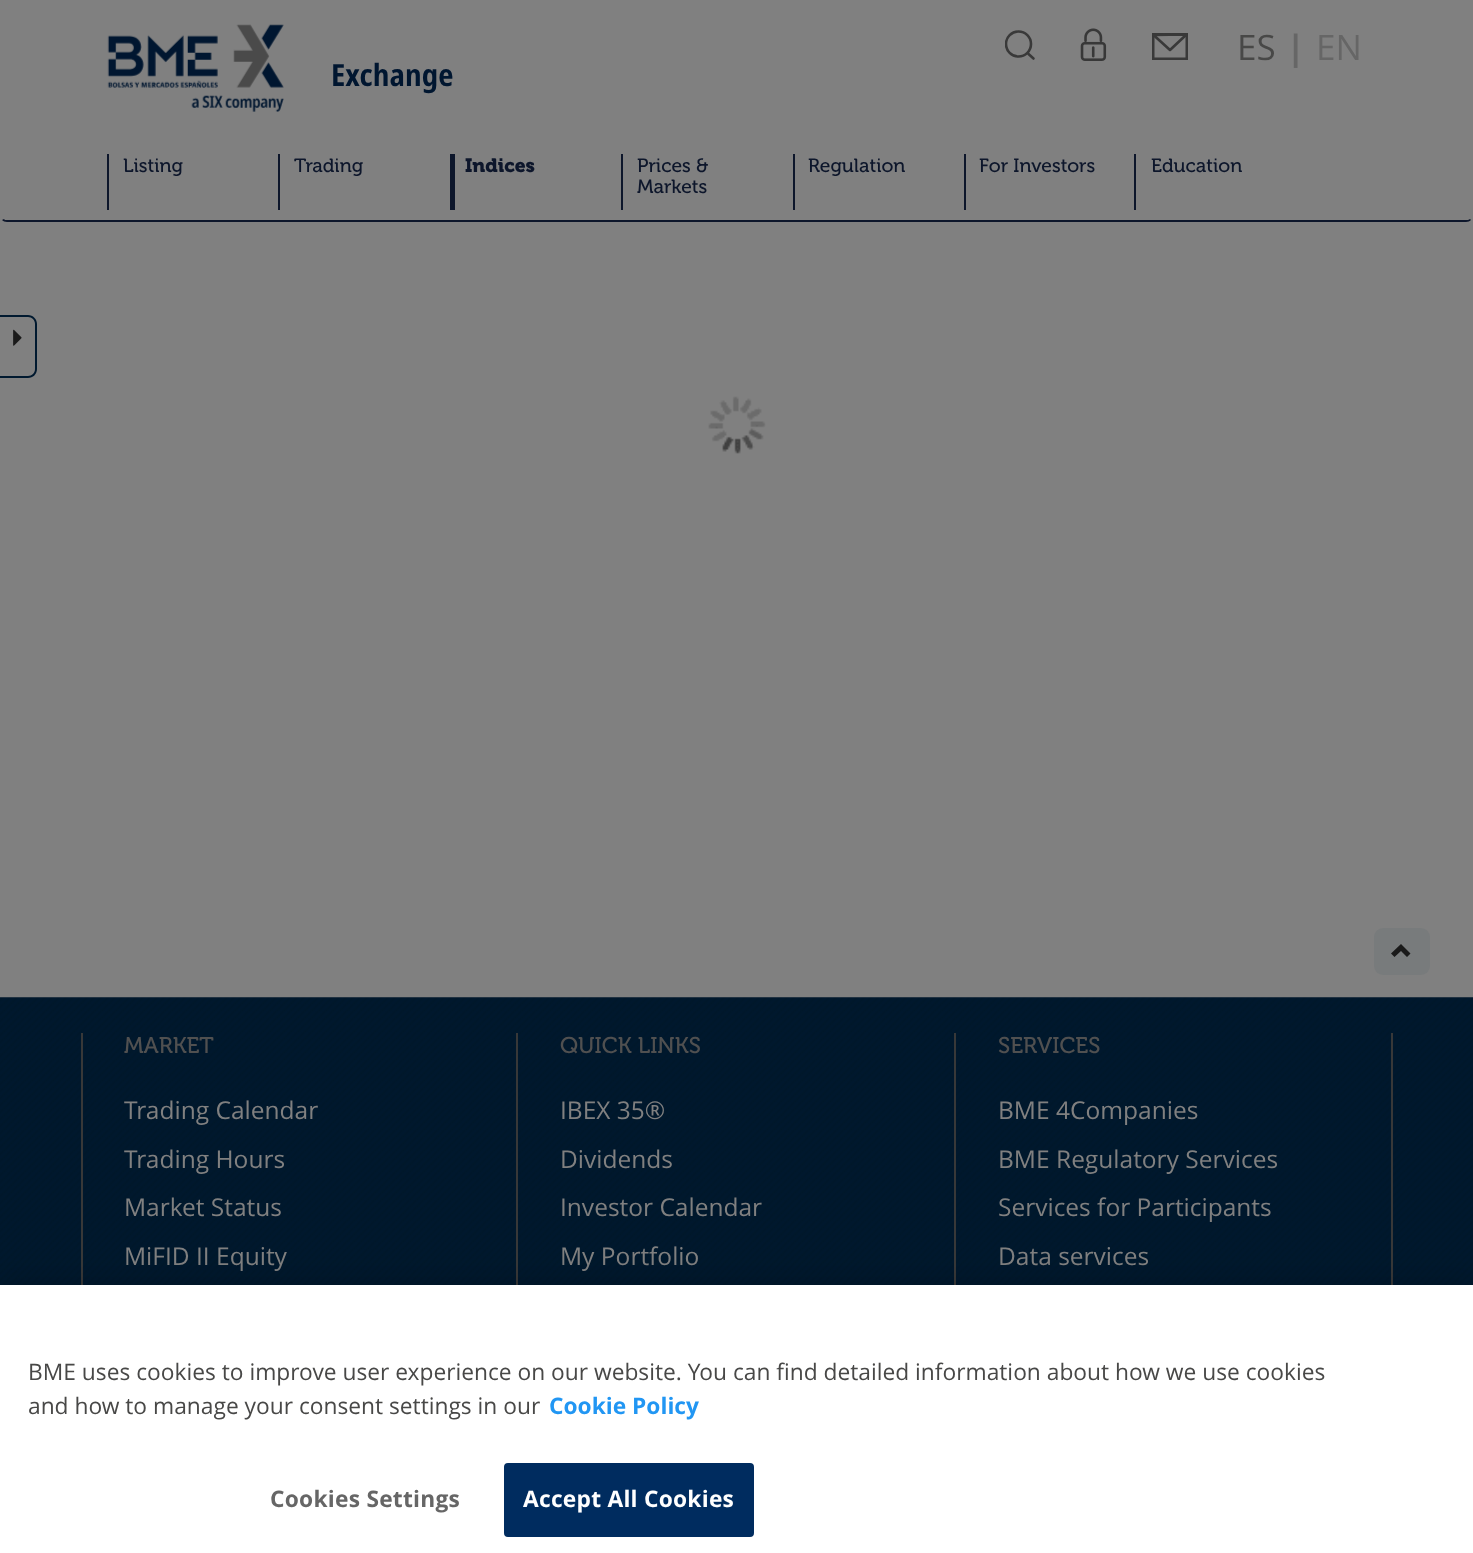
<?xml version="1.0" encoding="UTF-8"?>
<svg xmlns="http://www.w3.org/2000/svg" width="1473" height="1553">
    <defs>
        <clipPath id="clip1"><rect x="1005" y="21" width="31" height="49"/></clipPath>
        <filter id="blur1" x="-50%" y="-200%" width="200%" height="500%"><feGaussianBlur stdDeviation="16"/></filter>
    </defs>
    <rect width="100%" height="100%" fill="#808080"/>
    <path d="M 4 219 C 4 220 6 220 7 220 H 1466 C 1467 220 1469 220 1470 219 L 1471 220 C 1470 221 1468 222 1466 222 H 7 C 5 222 3 221 2 220 Z" fill="#0D162B"/>
    <g clip-path="url(#clip1)">
        <circle cx="1018.5" cy="44" r="12.5" fill="none" stroke="#393939" stroke-width="2.6"/>
    </g>
    <path d="M 1028.5 54 L 1033.5 58.5" fill="none" stroke="#393939" stroke-width="2.6" stroke-linecap="round" stroke-linejoin="round"/>
    <image x="1080" y="28" width="27" height="33" href="img_01.png"/>
    <rect x="1153.25" y="34.25" width="33.5" height="24.5" fill="none" stroke="#393939" stroke-width="2.5"/>
    <path d="M 1153.5 35 L 1170 50 L 1186.5 34.5 Z" fill="none" stroke="#393939" stroke-width="2.6" stroke-linecap="round" stroke-linejoin="round"/>
    <text x="1237" y="60" font-family="Open Sans" font-size="35" fill="#484847">ES</text>
    <text x="1286" y="60" font-family="Open Sans" font-size="35" font-weight="700" fill="#666666">|</text>
    <text x="1316" y="60" font-family="Open Sans" font-size="35" fill="#666666">EN</text>
    <image x="107" y="24" width="177" height="88" href="img_02.png"/>
    <text x="331" y="86" font-family="Noto Sans" font-size="30.5" font-weight="700" fill="#001630">Exchange</text>
    <rect x="107" y="154" width="2" height="56" fill="#0D162B"/>
    <text x="123" y="172" font-family="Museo" font-size="19.25" fill="#0D162B">Listing</text>
    <rect x="278" y="154" width="2" height="56" fill="#0D162B"/>
    <text x="294" y="172" font-family="Museo" font-size="19.25" fill="#0D162B">Trading</text>
    <rect x="450" y="154" width="5" height="56" fill="#0D162B"/>
    <text x="465" y="172" font-family="Museo" font-size="19.25" font-weight="700" fill="#0D162B">Indices</text>
    <rect x="621" y="154" width="2" height="56" fill="#0D162B"/>
    <text font-family="Museo" font-size="19.25" fill="#0D162B">
        <tspan x="637" y="172">Prices &amp;</tspan>
        <tspan x="637" y="193">Markets</tspan>
    </text>
    <rect x="793" y="154" width="2" height="56" fill="#0D162B"/>
    <text x="808" y="172" font-family="Museo" font-size="19.25" fill="#0D162B">Regulation</text>
    <rect x="964" y="154" width="2" height="56" fill="#0D162B"/>
    <text x="979" y="172" font-family="Museo" font-size="19.25" fill="#0D162B">For Investors</text>
    <rect x="1134" y="154" width="2" height="56" fill="#0D162B"/>
    <text x="1151" y="172" font-family="Museo" font-size="19.25" fill="#0D162B">Education</text>
    <path d="M -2 315 H 28 C 33 315 37 319 37 324 V 369 C 37 374 33 378 28 378 H -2 Z M -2 317 H 28 C 32 317 35 320 35 324 V 369 C 35 373 32 376 28 376 H -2 Z" fill="#00192F" fill-rule="evenodd"/>
    <image x="13" y="329" width="9" height="17" href="img_03.png"/>
    <image x="708" y="396" width="58" height="58" href="img_04.png"/>
    <rect x="1374" y="928" width="56" height="47" rx="9" fill="#787B7C"/>
    <path d="M 1410.5 953.5 L 1407 957 L 1401 951 L 1394.5 957 L 1391 953.5 L 1401 944 Z" fill="#1A1A1A"/>
    <image x="0" y="997" width="1473" height="288" href="img_05.png"/>
    <rect x="516" y="1033" width="2" height="252" fill="#383838"/>
    <rect x="81" y="1033" width="2" height="252" fill="#383838"/>
    <text x="124" y="1053" font-family="Museo" font-size="22.75" fill="#505050">MARKET</text>
    <text x="124" y="1119" font-family="Open Sans" font-size="24.5" fill="#808080">Trading Calendar</text>
    <text font-family="Open Sans" font-size="24.5" fill="#808080">
        <tspan x="124" y="1168">Trading Hours</tspan>
        <tspan x="124" y="1216">Market Status</tspan>
    </text>
    <text x="124" y="1265" font-family="Open Sans" font-size="24.5" fill="#808080">MiFID II Equity</text>
    <rect x="954" y="1033" width="2" height="252" fill="#383838"/>
    <text x="560" y="1053" font-family="Museo" font-size="22.75" fill="#505050">QUICK LINKS</text>
    <text x="560" y="1119" font-family="Open Sans" font-size="24.5" fill="#808080">IBEX 35®</text>
    <text font-family="Open Sans" font-size="24.5" fill="#808080">
        <tspan x="560" y="1168">Dividends</tspan>
        <tspan x="560" y="1216">Investor Calendar</tspan>
    </text>
    <text x="560" y="1265" font-family="Open Sans" font-size="24.5" fill="#808080">My Portfolio</text>
    <rect x="1391" y="1033" width="2" height="252" fill="#383838"/>
    <text x="998" y="1053" font-family="Museo" font-size="22.75" fill="#505050">SERVICES</text>
    <text x="998" y="1119" font-family="Open Sans" font-size="24.5" fill="#808080">BME 4Companies</text>
    <text font-family="Open Sans" font-size="24.5" fill="#808080">
        <tspan x="998" y="1168">BME Regulatory Services</tspan>
        <tspan x="998" y="1216">Services for Participants</tspan>
    </text>
    <text x="998" y="1265" font-family="Open Sans" font-size="24.5" fill="#808080">Data services</text>
    <rect x="0" y="1285" width="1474" height="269" fill="#000000" fill-opacity="0.2" filter="url(#blur1)"/>
    <rect x="0" y="1285" width="1473" height="268" fill="#FFFFFF"/>
    <text font-family="Open Sans" font-size="22.75" fill="#484847">
        <tspan x="28" y="1380">BME uses cookies to improve user experience on our website. You can find detailed information about how we use cookies</tspan>
        <tspan x="28" y="1414">and how to manage your consent settings in our</tspan>
    </text>
    <text x="549" y="1414" font-family="Open Sans" font-size="22.75" font-weight="700" fill="#2196F3">Cookie Policy</text>
    <text x="270" y="1507" font-family="Open Sans" font-size="22.75" font-weight="700" letter-spacing="0.25" fill="#666666">Cookies Settings</text>
    <rect x="505" y="1464" width="248" height="72" rx="3" fill="#002C5F" stroke="#002C5F" stroke-width="2"/>
    <text x="523" y="1507" font-family="Open Sans" font-size="22.75" font-weight="700" letter-spacing="0.25" fill="#FFFFFF">Accept All Cookies</text>
</svg>
